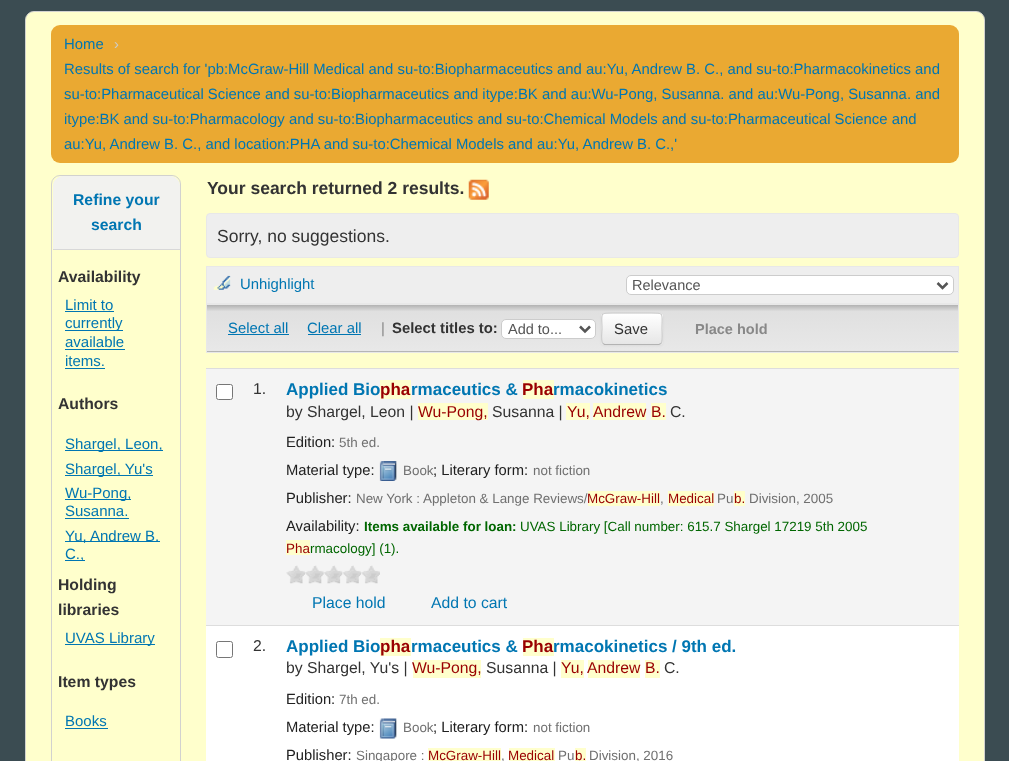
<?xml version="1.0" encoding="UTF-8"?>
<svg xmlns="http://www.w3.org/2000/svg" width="1009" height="761">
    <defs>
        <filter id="blur1" x="-50%" y="-200%" width="200%" height="500%"><feGaussianBlur stdDeviation="0.5"/></filter>
        <linearGradient id="g1" gradientUnits="userSpaceOnUse" x1="583" y1="305" x2="583" y2="351"><stop offset="0" stop-color="#B2B2B2"/><stop offset="0.14" stop-color="#E0E0E0"/><stop offset="1" stop-color="#E8E8E8"/></linearGradient>
        <linearGradient id="g2" gradientUnits="userSpaceOnUse" x1="583" y1="351" x2="583" y2="398"><stop offset="0" stop-color="#B2B2B2"/><stop offset="0.14" stop-color="#E0E0E0"/><stop offset="1" stop-color="#E8E8E8"/></linearGradient>
        <filter id="blur2" x="-50%" y="-200%" width="200%" height="500%"><feGaussianBlur stdDeviation="1"/></filter>
        <clipPath id="clip1"><rect x="601" y="313" width="62" height="32" rx="4"/></clipPath>
        <linearGradient id="g3" gradientUnits="userSpaceOnUse" x1="632" y1="314" x2="632" y2="344"><stop offset="0" stop-color="#FFFFFF"/><stop offset="1" stop-color="#E6E6E6"/></linearGradient>
    </defs>
    <rect width="100%" height="100%" fill="#3B4C52"/>
    <rect x="25" y="13" width="960" height="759" rx="9" fill="#000000" fill-opacity="0.2" filter="url(#blur1)"/>
    <rect x="25.5" y="11.5" width="959" height="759" rx="8.5" fill="#FFFFCC" stroke="#D2D2CF"/>
    <rect x="51" y="25" width="908" height="138" rx="9" fill="#EAA932"/>
    <text x="64" y="49" font-family="Liberation Sans" font-size="14.88" fill="#0076B2">Home</text>
    <text x="114" y="49" font-family="Liberation Sans" font-size="14.88" fill="#CCCCCC">›</text>
    <text font-family="Liberation Sans" font-size="14.88" fill="#0076B2">
        <tspan x="64" y="74">Results of search for 'pb:McGraw-Hill Medical and su-to:Biopharmaceutics and au:Yu, Andrew B. C., and su-to:Pharmacokinetics and</tspan>
        <tspan x="64" y="99">su-to:Pharmaceutical Science and su-to:Biopharmaceutics and itype:BK and au:Wu-Pong, Susanna. and au:Wu-Pong, Susanna. and</tspan>
        <tspan x="64" y="124">itype:BK and su-to:Pharmacology and su-to:Biopharmaceutics and su-to:Chemical Models and su-to:Pharmaceutical Science and</tspan>
        <tspan x="64" y="149">au:Yu, Andrew B. C., and location:PHA and su-to:Chemical Models and au:Yu, Andrew B. C.,'</tspan>
    </text>
    <rect x="51.5" y="175.5" width="129" height="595" rx="8.5" fill="none" stroke="#D2D2CF"/>
    <path d="M 63 176 H 170 C 175.5 176 180 180.5 180 186 V 250 H 53 V 186 C 53 180.5 57.5 176 63 176 Z" fill="#F2F2EF"/>
    <rect x="53" y="249" width="127" height="1" fill="#D8D8D8"/>
    <text x="73" y="205" font-family="Liberation Sans" font-size="15.75" font-weight="700" fill="#0076B2">Refine your</text>
    <text x="91" y="230" font-family="Liberation Sans" font-size="15.75" font-weight="700" fill="#0076B2">search</text>
    <text x="58" y="282" font-family="Liberation Sans" font-size="15.75" font-weight="700" fill="#333333">Availability</text>
    <text x="65" y="310" font-family="Liberation Sans" font-size="15" fill="#0076B2">Limit to</text>
    <rect x="65" y="311" width="49" height="1" fill="#0076B2"/>
    <rect x="65" y="330" width="58" height="1" fill="#0076B2"/>
    <text font-family="Liberation Sans" font-size="15" fill="#0076B2">
        <tspan x="65" y="328">currently</tspan>
        <tspan x="65" y="347">available</tspan>
    </text>
    <rect x="65" y="349" width="60" height="1" fill="#0076B2"/>
    <text x="65" y="366" font-family="Liberation Sans" font-size="15" fill="#0076B2">items.</text>
    <rect x="65" y="368" width="40" height="1" fill="#0076B2"/>
    <text x="58" y="409" font-family="Liberation Sans" font-size="15.75" font-weight="700" fill="#333333">Authors</text>
    <rect x="65" y="450" width="98" height="1" fill="#0076B2"/>
    <text x="65" y="449" font-family="Liberation Sans" font-size="15" fill="#0076B2">Shargel, Leon,</text>
    <rect x="65" y="475" width="88" height="1" fill="#0076B2"/>
    <text x="65" y="474" font-family="Liberation Sans" font-size="15" fill="#0076B2">Shargel, Yu's</text>
    <rect x="65" y="499" width="66" height="1" fill="#0076B2"/>
    <text font-family="Liberation Sans" font-size="15" fill="#0076B2">
        <tspan x="65" y="498">Wu-Pong,</tspan>
        <tspan x="65" y="516">Susanna.</tspan>
    </text>
    <rect x="65" y="518" width="64" height="1" fill="#0076B2"/>
    <rect x="65" y="541" width="95" height="1" fill="#0076B2"/>
    <text x="65" y="541" font-family="Liberation Sans" font-size="15" fill="#0076B2">Yu, Andrew B.</text>
    <rect x="65" y="560" width="20" height="1" fill="#0076B2"/>
    <text x="65" y="559" font-family="Liberation Sans" font-size="15" fill="#0076B2">C.,</text>
    <text font-family="Liberation Sans" font-size="15.75" font-weight="700" fill="#333333">
        <tspan x="58" y="590">Holding</tspan>
        <tspan x="58" y="615">libraries</tspan>
    </text>
    <rect x="65" y="644" width="90" height="1" fill="#0076B2"/>
    <text x="65" y="643" font-family="Liberation Sans" font-size="15" fill="#0076B2">UVAS Library</text>
    <text x="58" y="687" font-family="Liberation Sans" font-size="15.75" font-weight="700" fill="#333333">Item types</text>
    <text x="65" y="726" font-family="Liberation Sans" font-size="15" fill="#0076B2">Books</text>
    <rect x="65" y="728" width="43" height="1" fill="#0076B2"/>
    <text x="207" y="194" font-family="Liberation Sans" font-size="17.5" font-weight="700" fill="#333333">Your search returned 2 results.</text>
    <image x="468" y="179" width="21" height="21" href="img_01.png"/>
    <rect x="206.5" y="213.5" width="752" height="44" rx="3.5" fill="#EEEEEE" stroke="#E8E8E8"/>
    <text x="217" y="242" font-family="Liberation Sans" font-size="17.5" fill="#333333">Sorry, no suggestions.</text>
    <rect x="206.5" y="266.5" width="752" height="37" fill="#EEEEEE" stroke="#E8E8E8"/>
    <image x="213" y="275" width="18" height="15" href="img_02.png"/>
    <text x="240" y="289" font-family="Liberation Sans" font-size="14.88" fill="#0076B2">Unhighlight</text>
    <rect x="626.5" y="275.5" width="327" height="19" rx="4.5" fill="#FFFFFF" stroke="#CCCCCC"/>
    <path d="M 937.5 283 L 942.5 288 L 947.5 283" fill="none" stroke="#555555" stroke-width="2.5"/>
    <text x="632" y="290" font-family="Liberation Sans" font-size="14.5" fill="#555555">Relevance</text>
    <rect x="207" y="305" width="751" height="46" fill="url(#g1)"/>
    <rect x="206" y="351" width="753" height="1" fill="url(#g2)"/>
    <rect x="206.5" y="304.5" width="752" height="48" fill="none" stroke="#E8E8E8"/>
    <text x="228" y="333" font-family="Liberation Sans" font-size="14.88" fill="#0076B2">Select all</text>
    <rect x="228" y="334" width="61" height="1" fill="#0076B2"/>
    <text x="307" y="333" font-family="Liberation Sans" font-size="14.88" fill="#0076B2">Clear all</text>
    <rect x="308" y="334" width="53" height="1" fill="#0076B2"/>
    <text x="381" y="333" font-family="Liberation Sans" font-size="14.88" fill="#888888">|</text>
    <text x="392" y="333" font-family="Liberation Sans" font-size="14.88" font-weight="700" fill="#333333">Select titles to:</text>
    <rect x="501.5" y="319.5" width="94" height="19" rx="4.5" fill="#FFFFFF" stroke="#CCCCCC"/>
    <path d="M 580 326.5 L 585 331.5 L 590 326.5" fill="none" stroke="#555555" stroke-width="2.5"/>
    <text x="508" y="334" font-family="Liberation Sans" font-size="14.5" fill="#555555">Add to...</text>
    <rect x="601" y="314" width="62" height="32" rx="4" fill="#000000" fill-opacity="0.05" filter="url(#blur2)"/>
    <rect x="601" y="313" width="62" height="32" rx="4" fill="#F5F5F5"/>
    <g clip-path="url(#clip1)">
        <rect x="601" y="314" width="62" height="30" fill="url(#g3)"/>
    </g>
    <path d="M 661 343.5 L 659 344.5 H 604.5 L 603 343.5" fill="none" stroke="#B3B3B3" stroke-width="1.2"/>
    <path d="M 603 343.5 C 600.5 341.5 602 331.5 602 329 C 602 312.5 598.5 313 614 313 H 650 C 665 313 662 312.5 662 329 C 662 331.5 663 341.5 661 343.5" fill="none" stroke="#CCCCCC" stroke-width="1.2"/>
    <text x="614" y="334" font-family="Liberation Sans" font-size="14.88" fill="#333333">Save</text>
    <text x="695" y="334" font-family="Liberation Sans" font-size="14.5" font-weight="700" fill="#888888">Place hold</text>
    <rect x="206" y="626" width="753" height="135" fill="#FFFFFF"/>
    <rect x="206" y="369" width="753" height="256" fill="#F4F4F4"/>
    <rect x="216.5" y="384.5" width="16" height="15" rx="2" fill="#FFFFFF" stroke="#767676"/>
    <text x="253" y="394" font-family="Liberation Sans" font-size="15.75" fill="#333333">1.</text>
    <rect x="206" y="368" width="753" height="1" fill="#DDDDDD"/>
    <text x="286" y="395" font-family="Liberation Sans" font-size="17" font-weight="700" fill="#0076B2">Applied Bio</text>
    <rect x="380" y="380" width="31" height="19" fill="#FFFFCC"/>
    <text x="380" y="395" font-family="Liberation Sans" font-size="17" font-weight="700" fill="#990000">pha</text>
    <text x="411" y="395" font-family="Liberation Sans" font-size="17" font-weight="700" fill="#0076B2">rmaceutics &amp;</text>
    <rect x="523" y="380" width="31" height="19" fill="#FFFFCC"/>
    <text x="522" y="395" font-family="Liberation Sans" font-size="17" font-weight="700" fill="#990000">Pha</text>
    <text x="553" y="395" font-family="Liberation Sans" font-size="17" font-weight="700" fill="#0076B2">rmacokinetics</text>
    <text x="286" y="417" font-family="Liberation Sans" font-size="15.75" fill="#333333">by Shargel, Leon |</text>
    <rect x="418" y="403" width="70" height="17" fill="#FFFFCC"/>
    <text x="418" y="417" font-family="Liberation Sans" font-size="15.75" fill="#990000">Wu-Pong,</text>
    <text x="492" y="417" font-family="Liberation Sans" font-size="15.75" fill="#333333">Susanna |</text>
    <rect x="566" y="403" width="24" height="17" fill="#FFFFCC"/>
    <text x="567" y="417" font-family="Liberation Sans" font-size="15.75" fill="#990000">Yu,</text>
    <rect x="593" y="403" width="53" height="17" fill="#FFFFCC"/>
    <text x="593" y="417" font-family="Liberation Sans" font-size="15.75" fill="#990000">Andrew</text>
    <rect x="651" y="403" width="15" height="17" fill="#FFFFCC"/>
    <text x="651" y="417" font-family="Liberation Sans" font-size="15.75" fill="#990000">B.</text>
    <text x="670" y="417" font-family="Liberation Sans" font-size="15.75" fill="#333333">C.</text>
    <text x="286" y="447" font-family="Liberation Sans" font-size="14.75" fill="#202020">Edition:</text>
    <text x="339" y="447" font-family="Liberation Sans" font-size="13.4" fill="#707070">5th ed.</text>
    <text x="286" y="475" font-family="Liberation Sans" font-size="14.75" fill="#202020">Material type:</text>
    <image x="379" y="461" width="18" height="20" href="img_03.png"/>
    <text x="403" y="475" font-family="Liberation Sans" font-size="13.4" fill="#707070">Book</text>
    <text x="433" y="475" font-family="Liberation Sans" font-size="14.75" fill="#202020">; Literary form:</text>
    <text x="533" y="475" font-family="Liberation Sans" font-size="13.4" fill="#707070">not fiction</text>
    <text x="286" y="503" font-family="Liberation Sans" font-size="14.75" fill="#202020">Publisher:</text>
    <text x="356" y="503" font-family="Liberation Sans" font-size="13.4" fill="#707070">New York : Appleton &amp; Lange Reviews/</text>
    <rect x="588" y="491" width="72" height="15" fill="#FFFFCC"/>
    <text x="587" y="503" font-family="Liberation Sans" font-size="13.4" fill="#990000">McGraw-Hill</text>
    <text x="660" y="503" font-family="Liberation Sans" font-size="13.4" fill="#707070">,</text>
    <rect x="668" y="491" width="46" height="15" fill="#FFFFCC"/>
    <text x="668" y="503" font-family="Liberation Sans" font-size="13.4" fill="#990000">Medical</text>
    <text x="717" y="503" font-family="Liberation Sans" font-size="13.4" fill="#707070">Pu</text>
    <rect x="734" y="491" width="11" height="15" fill="#FFFFCC"/>
    <text x="734" y="503" font-family="Liberation Sans" font-size="13.4" fill="#990000">b.</text>
    <text x="749" y="503" font-family="Liberation Sans" font-size="13.4" fill="#707070">Division, 2005</text>
    <text x="286" y="531" font-family="Liberation Sans" font-size="14.75" fill="#202020">Availability:</text>
    <text x="364" y="531" font-family="Liberation Sans" font-size="13.4" font-weight="700" fill="#006600">Items available for loan:</text>
    <text x="520" y="531" font-family="Liberation Sans" font-size="13.4" fill="#006600">UVAS Library [Call number: 615.7 Shargel 17219 5th 2005</text>
    <rect x="286" y="540" width="24" height="15" fill="#FFFFCC"/>
    <text x="286" y="553" font-family="Liberation Sans" font-size="13.4" fill="#990000">Pha</text>
    <text x="310" y="553" font-family="Liberation Sans" font-size="13.4" fill="#006600">rmacology] (1).</text>
    <image x="286" y="565" width="19" height="19" href="img_04.png"/>
    <image x="305" y="565" width="19" height="19" href="img_05.png"/>
    <image x="324" y="565" width="19" height="19" href="img_06.png"/>
    <image x="343" y="565" width="19" height="19" href="img_07.png"/>
    <image x="361" y="565" width="19" height="19" href="img_08.png"/>
    <text x="312" y="608" font-family="Liberation Sans" font-size="15.75" fill="#0076B2">Place hold</text>
    <text x="431" y="608" font-family="Liberation Sans" font-size="15.75" fill="#0076B2">Add to cart</text>
    <rect x="216.5" y="641.5" width="16" height="16" rx="2" fill="none" stroke="#767676"/>
    <text x="253" y="651" font-family="Liberation Sans" font-size="15.75" fill="#333333">2.</text>
    <rect x="206" y="625" width="753" height="1" fill="#DDDDDD"/>
    <text x="286" y="652" font-family="Liberation Sans" font-size="17" font-weight="700" fill="#0076B2">Applied Bio</text>
    <rect x="380" y="638" width="31" height="18" fill="#FFFFCC"/>
    <text x="380" y="652" font-family="Liberation Sans" font-size="17" font-weight="700" fill="#990000">pha</text>
    <text x="411" y="652" font-family="Liberation Sans" font-size="17" font-weight="700" fill="#0076B2">rmaceutics &amp;</text>
    <rect x="523" y="638" width="31" height="18" fill="#FFFFCC"/>
    <text x="522" y="652" font-family="Liberation Sans" font-size="17" font-weight="700" fill="#990000">Pha</text>
    <text x="553" y="652" font-family="Liberation Sans" font-size="17" font-weight="700" fill="#0076B2">rmacokinetics / 9th ed.</text>
    <text x="286" y="673" font-family="Liberation Sans" font-size="15.75" fill="#333333">by Shargel, Yu's |</text>
    <rect x="413" y="660" width="68" height="18" fill="#FFFFCC"/>
    <text x="412" y="673" font-family="Liberation Sans" font-size="15.75" fill="#990000">Wu-Pong,</text>
    <text x="486" y="673" font-family="Liberation Sans" font-size="15.75" fill="#333333">Susanna |</text>
    <rect x="561" y="660" width="23" height="18" fill="#FFFFCC"/>
    <text x="561" y="673" font-family="Liberation Sans" font-size="15.75" fill="#990000">Yu,</text>
    <rect x="588" y="660" width="52" height="18" fill="#FFFFCC"/>
    <text x="587" y="673" font-family="Liberation Sans" font-size="15.75" fill="#990000">Andrew</text>
    <rect x="645" y="660" width="15" height="18" fill="#FFFFCC"/>
    <text x="645" y="673" font-family="Liberation Sans" font-size="15.75" fill="#990000">B.</text>
    <text x="664" y="673" font-family="Liberation Sans" font-size="15.75" fill="#333333">C.</text>
    <text x="286" y="704" font-family="Liberation Sans" font-size="14.75" fill="#202020">Edition:</text>
    <text x="339" y="704" font-family="Liberation Sans" font-size="13.4" fill="#707070">7th ed.</text>
    <text x="286" y="732" font-family="Liberation Sans" font-size="14.75" fill="#202020">Material type:</text>
    <image x="379" y="718" width="18" height="21" href="img_09.png"/>
    <text x="403" y="732" font-family="Liberation Sans" font-size="13.4" fill="#707070">Book</text>
    <text x="433" y="732" font-family="Liberation Sans" font-size="14.75" fill="#202020">; Literary form:</text>
    <text x="533" y="732" font-family="Liberation Sans" font-size="13.4" fill="#707070">not fiction</text>
    <text x="286" y="760" font-family="Liberation Sans" font-size="14.75" fill="#202020">Publisher:</text>
    <text x="356" y="760" font-family="Liberation Sans" font-size="13.4" fill="#707070">Singapore :</text>
    <rect x="428" y="748" width="73" height="13" fill="#FFFFCC"/>
    <text x="428" y="760" font-family="Liberation Sans" font-size="13.4" fill="#990000">McGraw-Hill</text>
    <text x="501" y="760" font-family="Liberation Sans" font-size="13.4" fill="#707070">,</text>
    <rect x="509" y="748" width="46" height="13" fill="#FFFFCC"/>
    <text x="508" y="760" font-family="Liberation Sans" font-size="13.4" fill="#990000">Medical</text>
    <text x="558" y="760" font-family="Liberation Sans" font-size="13.4" fill="#707070">Pu</text>
    <rect x="575" y="748" width="11" height="13" fill="#FFFFCC"/>
    <text x="575" y="760" font-family="Liberation Sans" font-size="13.4" fill="#990000">b.</text>
    <text x="589" y="760" font-family="Liberation Sans" font-size="13.4" fill="#707070">Division, 2016</text>
</svg>
